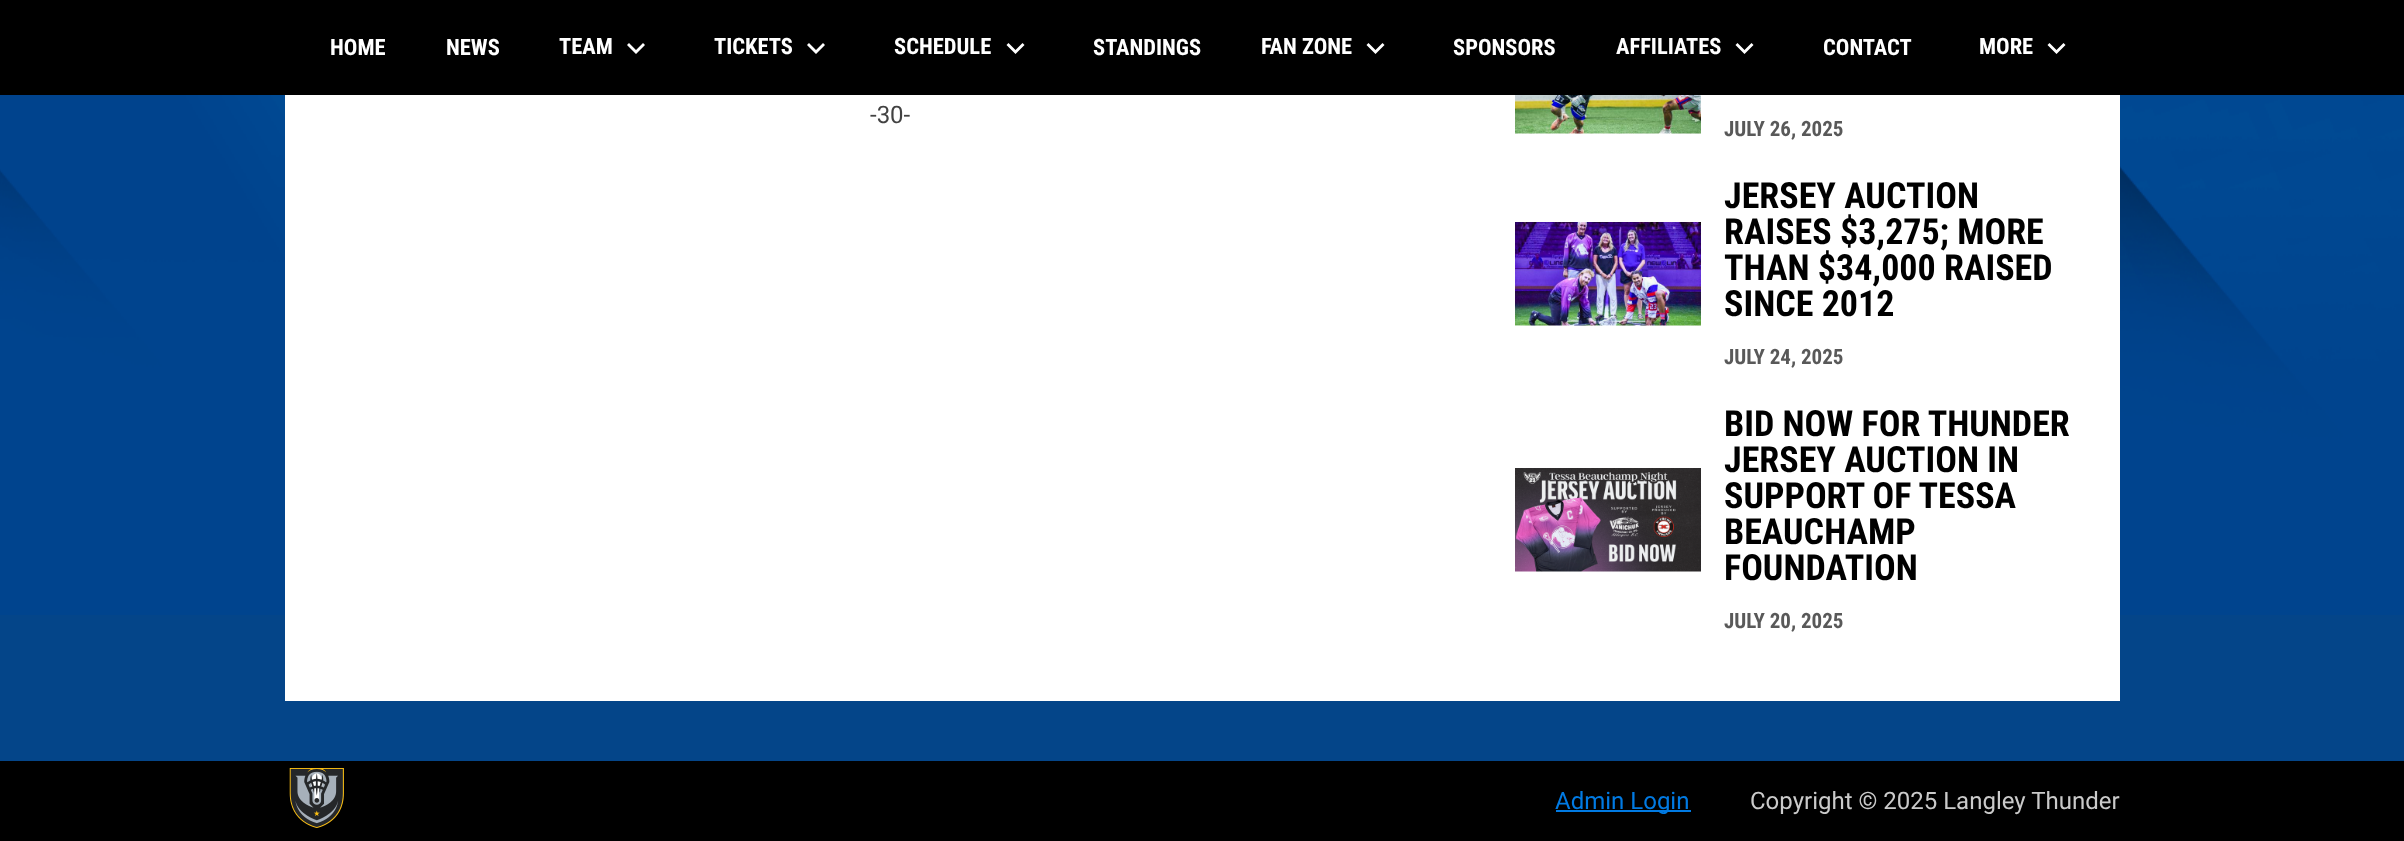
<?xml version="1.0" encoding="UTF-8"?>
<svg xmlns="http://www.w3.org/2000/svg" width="2404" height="841">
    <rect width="100%" height="100%" fill="#044589"/>
    <image x="0" y="95" width="2404" height="520" href="img_01.png"/>
    <rect x="0" y="0" width="2404" height="95" fill="#000000"/>
    <text x="330" y="55" font-family="Roboto Condensed" font-size="22.5" font-weight="700" fill="#FFFFFF">HOME</text>
    <text x="446" y="55" font-family="Roboto Condensed" font-size="22.5" font-weight="700" fill="#FFFFFF">NEWS</text>
    <text x="559" y="54" font-family="Roboto Condensed" font-size="22.5" font-weight="700" fill="#FFFFFF">TEAM</text>
    <path d="M 629 43 L 636 50 L 643 43 L 645 45 L 636 54 L 627 45 Z" fill="#FFFFFF"/>
    <text x="714" y="54" font-family="Roboto Condensed" font-size="22.5" font-weight="700" fill="#FFFFFF">TICKETS</text>
    <path d="M 809 43 L 816 50 L 823 43 L 825 45 L 816 54 L 807 45 Z" fill="#FFFFFF"/>
    <text x="894" y="54" font-family="Roboto Condensed" font-size="22.5" font-weight="700" fill="#FFFFFF">SCHEDULE</text>
    <path d="M 1008.5 43 L 1015.5 50 L 1022.5 43 L 1024.5 45 L 1015.5 54 L 1006.5 45 Z" fill="#FFFFFF"/>
    <text x="1093" y="55" font-family="Roboto Condensed" font-size="22.5" font-weight="700" fill="#FFFFFF">STANDINGS</text>
    <text x="1261" y="54" font-family="Roboto Condensed" font-size="22.5" font-weight="700" fill="#FFFFFF">FAN ZONE</text>
    <path d="M 1368.5 43 L 1375.5 50 L 1382.5 43 L 1384.5 45 L 1375.5 54 L 1366.5 45 Z" fill="#FFFFFF"/>
    <text x="1453" y="55" font-family="Roboto Condensed" font-size="22.5" font-weight="700" fill="#FFFFFF">SPONSORS</text>
    <text x="1616" y="54" font-family="Roboto Condensed" font-size="22.5" font-weight="700" fill="#FFFFFF">AFFILIATES</text>
    <path d="M 1737.5 43 L 1744.5 50 L 1751.5 43 L 1753.5 45 L 1744.5 54 L 1735.5 45 Z" fill="#FFFFFF"/>
    <text x="1823" y="55" font-family="Roboto Condensed" font-size="22.5" font-weight="700" fill="#FFFFFF">CONTACT</text>
    <text x="1979" y="54" font-family="Roboto Condensed" font-size="22.5" font-weight="700" fill="#FFFFFF">MORE</text>
    <path d="M 2049.5 43 L 2056.5 50 L 2063.5 43 L 2065.5 45 L 2056.5 54 L 2047.5 45 Z" fill="#FFFFFF"/>
    <rect x="285" y="95" width="1835" height="606" fill="#FFFFFF"/>
    <text x="870" y="123" font-family="Roboto" font-size="24" fill="#424242">-30-</text>
    <image x="1515" y="95" width="186" height="39" href="img_02.png"/>
    <text x="1724" y="136" font-family="Roboto Condensed" font-size="21" font-weight="700" fill="#595959">JULY 26, 2025</text>
    <image x="1515" y="222" width="186" height="104" href="img_03.png"/>
    <text font-family="Roboto Condensed" font-size="36" font-weight="700" fill="#000000">
        <tspan x="1724" y="208">JERSEY AUCTION</tspan>
        <tspan x="1724" y="244">RAISES $3,275; MORE</tspan>
        <tspan x="1724" y="280">THAN $34,000 RAISED</tspan>
        <tspan x="1724" y="316">SINCE 2012</tspan>
    </text>
    <text x="1724" y="364" font-family="Roboto Condensed" font-size="21" font-weight="700" fill="#595959">JULY 24, 2025</text>
    <image x="1515" y="468" width="186" height="104" href="img_04.png"/>
    <text font-family="Roboto Condensed" font-size="36" font-weight="700" fill="#000000">
        <tspan x="1724" y="436">BID NOW FOR THUNDER</tspan>
        <tspan x="1724" y="472">JERSEY AUCTION IN</tspan>
        <tspan x="1724" y="508">SUPPORT OF TESSA</tspan>
        <tspan x="1724" y="544">BEAUCHAMP</tspan>
        <tspan x="1724" y="580">FOUNDATION</tspan>
    </text>
    <text x="1724" y="628" font-family="Roboto Condensed" font-size="21" font-weight="700" fill="#595959">JULY 20, 2025</text>
    <rect x="0" y="761" width="2404" height="80" fill="#000000"/>
    <image x="289" y="768" width="55" height="60" href="img_05.png"/>
    <rect x="1556" y="810" width="135" height="2" fill="#007AE3"/>
    <text x="1555" y="809" font-family="Roboto" font-size="24" fill="#007AE3">Admin Login</text>
    <text x="1750" y="809" font-family="Roboto" font-size="24" fill="#CACACA">Copyright © 2025 Langley Thunder</text>
</svg>
